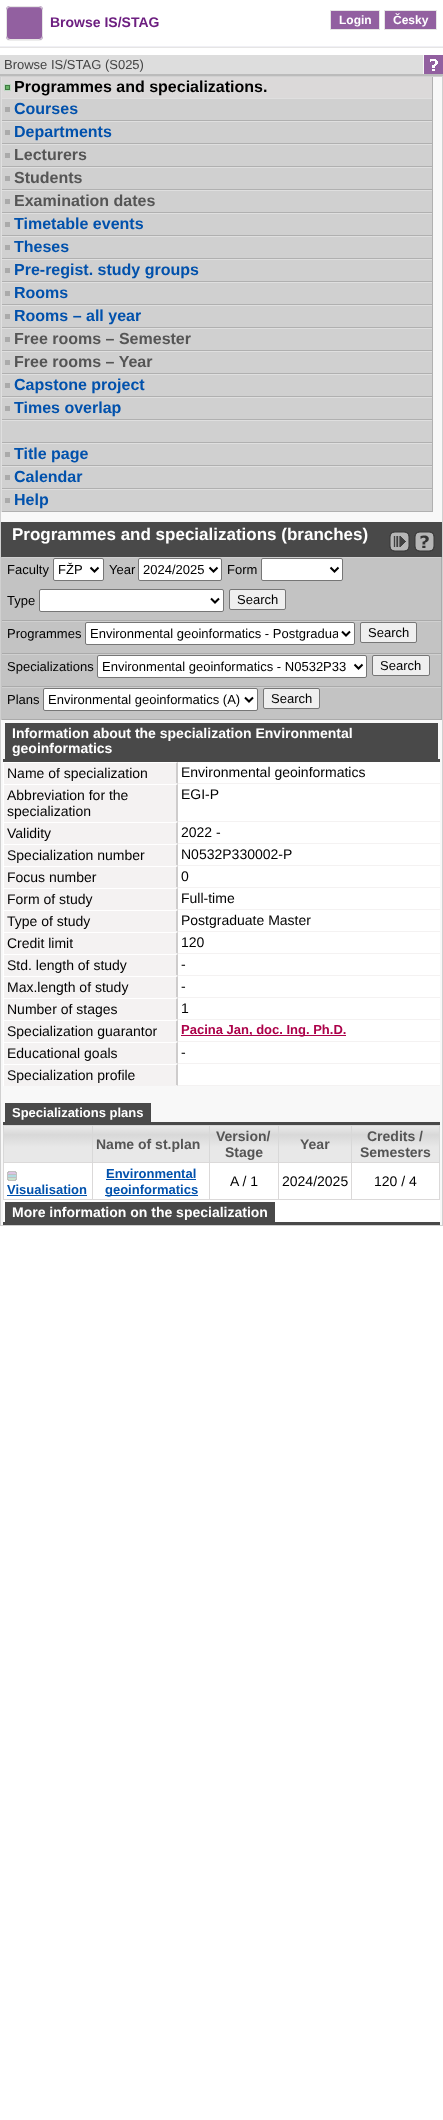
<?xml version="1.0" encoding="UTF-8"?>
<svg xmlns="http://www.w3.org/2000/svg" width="443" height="2120">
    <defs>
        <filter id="blur1" x="-50%" y="-200%" width="200%" height="500%"><feGaussianBlur stdDeviation="0.5"/></filter>
        <clipPath id="clip1"><rect x="90" y="625" width="248" height="17"/></clipPath>
        <linearGradient id="g1" gradientUnits="userSpaceOnUse" x1="49" y1="1127" x2="49" y2="1163"><stop offset="0" stop-color="#E8E8E8"/><stop offset="0.22" stop-color="#D8D8D8"/><stop offset="0.56" stop-color="#E8E8E8"/></linearGradient>
        <linearGradient id="g2" gradientUnits="userSpaceOnUse" x1="151" y1="1127" x2="151" y2="1163"><stop offset="0" stop-color="#E8E8E8"/><stop offset="0.22" stop-color="#D8D8D8"/><stop offset="0.56" stop-color="#E8E8E8"/></linearGradient>
        <linearGradient id="g3" gradientUnits="userSpaceOnUse" x1="244" y1="1127" x2="244" y2="1163"><stop offset="0" stop-color="#E8E8E8"/><stop offset="0.22" stop-color="#D8D8D8"/><stop offset="0.56" stop-color="#E8E8E8"/></linearGradient>
        <linearGradient id="g4" gradientUnits="userSpaceOnUse" x1="315" y1="1127" x2="315" y2="1163"><stop offset="0" stop-color="#E8E8E8"/><stop offset="0.22" stop-color="#D8D8D8"/><stop offset="0.56" stop-color="#E8E8E8"/></linearGradient>
        <linearGradient id="g5" gradientUnits="userSpaceOnUse" x1="396" y1="1127" x2="396" y2="1163"><stop offset="0" stop-color="#E8E8E8"/><stop offset="0.22" stop-color="#D8D8D8"/><stop offset="0.56" stop-color="#E8E8E8"/></linearGradient>
    </defs>
    <rect width="100%" height="100%" fill="#FFFFFF"/>
    <rect x="6" y="7" width="37" height="34" rx="4" fill="#000000" fill-opacity="0.07" filter="url(#blur1)"/>
    <rect x="6" y="6" width="37" height="34" rx="4" fill="#9260A0"/>
    <path d="M 10 8 H 39 C 41 8 42 9 42 11 C 42 6 38.5 7 34 7 H 15 C 10.5 7 7 6 7 11 C 7 9 8 8 10 8 Z" fill="#A278AE"/>
    <rect x="6.5" y="6.5" width="36" height="33" rx="3.5" fill="none" stroke="#E6E5E5"/>
    <text x="50" y="27" font-family="Liberation Sans" font-size="14" font-weight="700" fill="#6D1F80">Browse IS/STAG</text>
    <rect x="330.5" y="10.5" width="49" height="19" fill="#9260A0" stroke="#E6E5E5"/>
    <text x="339" y="24" font-family="Liberation Sans" font-size="12" font-weight="700" fill="#FFFFFF">Login</text>
    <rect x="384.5" y="10.5" width="52" height="19" fill="#9260A0" stroke="#E6E5E5"/>
    <text x="393" y="24" font-family="Liberation Sans" font-size="12" font-weight="700" fill="#FFFFFF">Česky</text>
    <rect x="0" y="46" width="443" height="1" fill="#F0F0F5"/>
    <rect x="0" y="47" width="443" height="1" fill="#E6E5E5"/>
    <rect x="0" y="55" width="423" height="19" fill="#DDDDDD"/>
    <rect x="0" y="74" width="443" height="2" fill="#BBBBBB"/>
    <text x="4" y="69" font-family="Liberation Sans" font-size="13" fill="#444444">Browse IS/STAG (S025)</text>
    <rect x="423" y="55" width="1" height="19" fill="#F5F5F5"/>
    <image x="424" y="55" width="19" height="19" href="img_01.png"/>
    <rect x="0.5" y="76.5" width="442" height="1149" fill="#F8F8F8" stroke="#D0D0D0"/>
    <rect x="2" y="77" width="430" height="21" fill="#DBD9D9"/>
    <image x="4" y="84" width="7" height="7" href="img_02.png"/>
    <rect x="432" y="77" width="1" height="21" fill="#B0B0B0"/>
    <rect x="1" y="77" width="1" height="21" fill="#DFDFDF"/>
    <text x="14" y="92" font-family="Liberation Sans" font-size="16" font-weight="700" fill="#000000">Programmes and specializations.</text>
    <rect x="2" y="99" width="430" height="21" fill="#D0D0D0"/>
    <rect x="5" y="107" width="5" height="5" fill="#AAAAAA"/>
    <rect x="1" y="98" width="432" height="1" fill="#DFDFDF"/>
    <rect x="432" y="98" width="1" height="23" fill="#B0B0B0"/>
    <rect x="1" y="120" width="432" height="1" fill="#B0B0B0"/>
    <rect x="1" y="98" width="1" height="23" fill="#DFDFDF"/>
    <text x="14" y="114" font-family="Liberation Sans" font-size="16" font-weight="700" fill="#0151AC">Courses</text>
    <rect x="2" y="122" width="430" height="21" fill="#D0D0D0"/>
    <rect x="5" y="130" width="5" height="5" fill="#AAAAAA"/>
    <rect x="1" y="121" width="432" height="1" fill="#DFDFDF"/>
    <rect x="432" y="121" width="1" height="23" fill="#B0B0B0"/>
    <rect x="1" y="143" width="432" height="1" fill="#B0B0B0"/>
    <rect x="1" y="121" width="1" height="23" fill="#DFDFDF"/>
    <text x="14" y="137" font-family="Liberation Sans" font-size="16" font-weight="700" fill="#0151AC">Departments</text>
    <rect x="2" y="145" width="430" height="21" fill="#D0D0D0"/>
    <rect x="5" y="153" width="5" height="5" fill="#AAAAAA"/>
    <rect x="1" y="144" width="432" height="1" fill="#DFDFDF"/>
    <rect x="432" y="144" width="1" height="23" fill="#B0B0B0"/>
    <rect x="1" y="166" width="432" height="1" fill="#B0B0B0"/>
    <rect x="1" y="144" width="1" height="23" fill="#DFDFDF"/>
    <text x="14" y="160" font-family="Liberation Sans" font-size="16" font-weight="700" fill="#555555">Lecturers</text>
    <rect x="2" y="168" width="430" height="21" fill="#D0D0D0"/>
    <rect x="5" y="176" width="5" height="5" fill="#AAAAAA"/>
    <rect x="1" y="167" width="432" height="1" fill="#DFDFDF"/>
    <rect x="432" y="167" width="1" height="23" fill="#B0B0B0"/>
    <rect x="1" y="189" width="432" height="1" fill="#B0B0B0"/>
    <rect x="1" y="167" width="1" height="23" fill="#DFDFDF"/>
    <text x="14" y="183" font-family="Liberation Sans" font-size="16" font-weight="700" fill="#555555">Students</text>
    <rect x="2" y="191" width="430" height="21" fill="#D0D0D0"/>
    <rect x="5" y="199" width="5" height="5" fill="#AAAAAA"/>
    <rect x="1" y="190" width="432" height="1" fill="#DFDFDF"/>
    <rect x="432" y="190" width="1" height="23" fill="#B0B0B0"/>
    <rect x="1" y="212" width="432" height="1" fill="#B0B0B0"/>
    <rect x="1" y="190" width="1" height="23" fill="#DFDFDF"/>
    <text x="14" y="206" font-family="Liberation Sans" font-size="16" font-weight="700" fill="#555555">Examination dates</text>
    <rect x="2" y="214" width="430" height="21" fill="#D0D0D0"/>
    <rect x="5" y="222" width="5" height="5" fill="#AAAAAA"/>
    <rect x="1" y="213" width="432" height="1" fill="#DFDFDF"/>
    <rect x="432" y="213" width="1" height="23" fill="#B0B0B0"/>
    <rect x="1" y="235" width="432" height="1" fill="#B0B0B0"/>
    <rect x="1" y="213" width="1" height="23" fill="#DFDFDF"/>
    <text x="14" y="229" font-family="Liberation Sans" font-size="16" font-weight="700" fill="#0151AC">Timetable events</text>
    <rect x="2" y="237" width="430" height="21" fill="#D0D0D0"/>
    <rect x="5" y="245" width="5" height="5" fill="#AAAAAA"/>
    <rect x="1" y="236" width="432" height="1" fill="#DFDFDF"/>
    <rect x="432" y="236" width="1" height="23" fill="#B0B0B0"/>
    <rect x="1" y="258" width="432" height="1" fill="#B0B0B0"/>
    <rect x="1" y="236" width="1" height="23" fill="#DFDFDF"/>
    <text x="14" y="252" font-family="Liberation Sans" font-size="16" font-weight="700" fill="#0151AC">Theses</text>
    <rect x="2" y="260" width="430" height="21" fill="#D0D0D0"/>
    <rect x="5" y="268" width="5" height="5" fill="#AAAAAA"/>
    <rect x="1" y="259" width="432" height="1" fill="#DFDFDF"/>
    <rect x="432" y="259" width="1" height="23" fill="#B0B0B0"/>
    <rect x="1" y="281" width="432" height="1" fill="#B0B0B0"/>
    <rect x="1" y="259" width="1" height="23" fill="#DFDFDF"/>
    <text x="14" y="275" font-family="Liberation Sans" font-size="16" font-weight="700" fill="#0151AC">Pre-regist. study groups</text>
    <rect x="2" y="283" width="430" height="21" fill="#D0D0D0"/>
    <rect x="5" y="291" width="5" height="5" fill="#AAAAAA"/>
    <rect x="1" y="282" width="432" height="1" fill="#DFDFDF"/>
    <rect x="432" y="282" width="1" height="23" fill="#B0B0B0"/>
    <rect x="1" y="304" width="432" height="1" fill="#B0B0B0"/>
    <rect x="1" y="282" width="1" height="23" fill="#DFDFDF"/>
    <text x="14" y="298" font-family="Liberation Sans" font-size="16" font-weight="700" fill="#0151AC">Rooms</text>
    <rect x="2" y="306" width="430" height="21" fill="#D0D0D0"/>
    <rect x="5" y="314" width="5" height="5" fill="#AAAAAA"/>
    <rect x="1" y="305" width="432" height="1" fill="#DFDFDF"/>
    <rect x="432" y="305" width="1" height="23" fill="#B0B0B0"/>
    <rect x="1" y="327" width="432" height="1" fill="#B0B0B0"/>
    <rect x="1" y="305" width="1" height="23" fill="#DFDFDF"/>
    <text x="14" y="321" font-family="Liberation Sans" font-size="16" font-weight="700" fill="#0151AC">Rooms – all year</text>
    <rect x="2" y="329" width="430" height="21" fill="#D0D0D0"/>
    <rect x="5" y="337" width="5" height="5" fill="#AAAAAA"/>
    <rect x="1" y="328" width="432" height="1" fill="#DFDFDF"/>
    <rect x="432" y="328" width="1" height="23" fill="#B0B0B0"/>
    <rect x="1" y="350" width="432" height="1" fill="#B0B0B0"/>
    <rect x="1" y="328" width="1" height="23" fill="#DFDFDF"/>
    <text x="14" y="344" font-family="Liberation Sans" font-size="16" font-weight="700" fill="#555555">Free rooms – Semester</text>
    <rect x="2" y="352" width="430" height="21" fill="#D0D0D0"/>
    <rect x="5" y="360" width="5" height="5" fill="#AAAAAA"/>
    <rect x="1" y="351" width="432" height="1" fill="#DFDFDF"/>
    <rect x="432" y="351" width="1" height="23" fill="#B0B0B0"/>
    <rect x="1" y="373" width="432" height="1" fill="#B0B0B0"/>
    <rect x="1" y="351" width="1" height="23" fill="#DFDFDF"/>
    <text x="14" y="367" font-family="Liberation Sans" font-size="16" font-weight="700" fill="#555555">Free rooms – Year</text>
    <rect x="2" y="375" width="430" height="21" fill="#D0D0D0"/>
    <rect x="5" y="383" width="5" height="5" fill="#AAAAAA"/>
    <rect x="1" y="374" width="432" height="1" fill="#DFDFDF"/>
    <rect x="432" y="374" width="1" height="23" fill="#B0B0B0"/>
    <rect x="1" y="396" width="432" height="1" fill="#B0B0B0"/>
    <rect x="1" y="374" width="1" height="23" fill="#DFDFDF"/>
    <text x="14" y="390" font-family="Liberation Sans" font-size="16" font-weight="700" fill="#0151AC">Capstone project</text>
    <rect x="2" y="398" width="430" height="21" fill="#D0D0D0"/>
    <rect x="5" y="406" width="5" height="5" fill="#AAAAAA"/>
    <rect x="1" y="397" width="432" height="1" fill="#DFDFDF"/>
    <rect x="432" y="397" width="1" height="23" fill="#B0B0B0"/>
    <rect x="1" y="419" width="432" height="1" fill="#B0B0B0"/>
    <rect x="1" y="397" width="1" height="23" fill="#DFDFDF"/>
    <text x="14" y="413" font-family="Liberation Sans" font-size="16" font-weight="700" fill="#0151AC">Times overlap</text>
    <rect x="2" y="421" width="430" height="21" fill="#D0D0D0"/>
    <rect x="1" y="420" width="432" height="1" fill="#DFDFDF"/>
    <rect x="432" y="420" width="1" height="23" fill="#B0B0B0"/>
    <rect x="1" y="442" width="432" height="1" fill="#B0B0B0"/>
    <rect x="1" y="420" width="1" height="23" fill="#DFDFDF"/>
    <rect x="2" y="444" width="430" height="21" fill="#D0D0D0"/>
    <rect x="5" y="452" width="5" height="5" fill="#AAAAAA"/>
    <rect x="1" y="443" width="432" height="1" fill="#DFDFDF"/>
    <rect x="432" y="443" width="1" height="23" fill="#B0B0B0"/>
    <rect x="1" y="465" width="432" height="1" fill="#B0B0B0"/>
    <rect x="1" y="443" width="1" height="23" fill="#DFDFDF"/>
    <text x="14" y="459" font-family="Liberation Sans" font-size="16" font-weight="700" fill="#0151AC">Title page</text>
    <rect x="2" y="467" width="430" height="21" fill="#D0D0D0"/>
    <rect x="5" y="475" width="5" height="5" fill="#AAAAAA"/>
    <rect x="1" y="466" width="432" height="1" fill="#DFDFDF"/>
    <rect x="432" y="466" width="1" height="23" fill="#B0B0B0"/>
    <rect x="1" y="488" width="432" height="1" fill="#B0B0B0"/>
    <rect x="1" y="466" width="1" height="23" fill="#DFDFDF"/>
    <text x="14" y="482" font-family="Liberation Sans" font-size="16" font-weight="700" fill="#0151AC">Calendar</text>
    <rect x="2" y="490" width="430" height="21" fill="#D0D0D0"/>
    <rect x="5" y="498" width="5" height="5" fill="#AAAAAA"/>
    <rect x="1" y="489" width="432" height="1" fill="#DFDFDF"/>
    <rect x="432" y="489" width="1" height="23" fill="#B0B0B0"/>
    <rect x="1" y="511" width="432" height="1" fill="#B0B0B0"/>
    <rect x="1" y="489" width="1" height="23" fill="#DFDFDF"/>
    <text x="14" y="505" font-family="Liberation Sans" font-size="16" font-weight="700" fill="#0151AC">Help</text>
    <rect x="1" y="522" width="441" height="35" fill="#494949"/>
    <text x="12" y="540" font-family="Liberation Sans" font-size="17" font-weight="700" fill="#FFFFFF">Programmes and specializations (branches)</text>
    <image x="389" y="531" width="21" height="21" href="img_03.png"/>
    <image x="414" y="531" width="21" height="21" href="img_04.png"/>
    <rect x="2" y="558" width="439" height="62" fill="#C3C3C3"/>
    <rect x="1" y="557" width="441" height="1" fill="#D0D0D0"/>
    <rect x="441" y="557" width="1" height="64" fill="#AAAAAA"/>
    <rect x="1" y="620" width="441" height="1" fill="#AAAAAA"/>
    <rect x="1" y="557" width="1" height="64" fill="#C3C3C3"/>
    <text x="7" y="574" font-family="Liberation Sans" font-size="13" fill="#000000">Faculty</text>
    <rect x="53.5" y="558.5" width="50" height="22" rx="1.5" fill="#FFFFFF" stroke="#767676"/>
    <path d="M 90.5 567.5 L 94.5 571.5 L 98.5 567.5" fill="none" stroke="#000000" stroke-width="2"/>
    <text x="58" y="574" font-family="Liberation Sans" font-size="13" fill="#000000">FŽP</text>
    <text x="109" y="574" font-family="Liberation Sans" font-size="13" fill="#000000">Year</text>
    <rect x="138.5" y="558.5" width="83" height="22" rx="1.5" fill="#FFFFFF" stroke="#767676"/>
    <path d="M 209.5 567.5 L 213.5 571.5 L 217.5 567.5" fill="none" stroke="#000000" stroke-width="2"/>
    <text x="143" y="574" font-family="Liberation Sans" font-size="13" fill="#000000">2024/2025</text>
    <text x="227" y="574" font-family="Liberation Sans" font-size="13" fill="#000000">Form</text>
    <rect x="261.5" y="558.5" width="81" height="22" rx="1.5" fill="#FFFFFF" stroke="#767676"/>
    <path d="M 330.5 567.5 L 334.5 571.5 L 338.5 567.5" fill="none" stroke="#000000" stroke-width="2"/>
    <text x="7" y="605" font-family="Liberation Sans" font-size="13" fill="#000000">Type</text>
    <rect x="39.5" y="589.5" width="184" height="22" rx="1.5" fill="#FFFFFF" stroke="#767676"/>
    <path d="M 211 598.5 L 215 602.5 L 219 598.5" fill="none" stroke="#000000" stroke-width="2"/>
    <rect x="229.5" y="589.5" width="56" height="20" rx="1.5" fill="#EFEFEF" stroke="#767676"/>
    <text x="237" y="604" font-family="Liberation Sans" font-size="13" fill="#000000">Search</text>
    <rect x="2" y="622" width="439" height="31" fill="#C3C3C3"/>
    <rect x="1" y="621" width="441" height="1" fill="#D0D0D0"/>
    <rect x="441" y="621" width="1" height="33" fill="#AAAAAA"/>
    <rect x="1" y="653" width="441" height="1" fill="#AAAAAA"/>
    <rect x="1" y="621" width="1" height="33" fill="#C3C3C3"/>
    <text x="7" y="638" font-family="Liberation Sans" font-size="13" fill="#000000">Programmes</text>
    <rect x="85.5" y="622.5" width="269" height="22" rx="1.5" fill="#FFFFFF" stroke="#767676"/>
    <path d="M 342 631.5 L 346 635.5 L 350 631.5" fill="none" stroke="#000000" stroke-width="2"/>
    <g clip-path="url(#clip1)">
        <text x="90" y="638" font-family="Liberation Sans" font-size="13" fill="#000000">Environmental geoinformatics - Postgradua</text>
    </g>
    <rect x="360.5" y="622.5" width="56" height="20" rx="1.5" fill="#EFEFEF" stroke="#767676"/>
    <text x="368" y="637" font-family="Liberation Sans" font-size="13" fill="#000000">Search</text>
    <rect x="2" y="655" width="439" height="31" fill="#C3C3C3"/>
    <rect x="1" y="654" width="441" height="1" fill="#D0D0D0"/>
    <rect x="441" y="654" width="1" height="33" fill="#AAAAAA"/>
    <rect x="1" y="686" width="441" height="1" fill="#AAAAAA"/>
    <rect x="1" y="654" width="1" height="33" fill="#C3C3C3"/>
    <text x="7" y="671" font-family="Liberation Sans" font-size="13" fill="#000000">Specializations</text>
    <rect x="97.5" y="655.5" width="269" height="22" rx="1.5" fill="#FFFFFF" stroke="#767676"/>
    <path d="M 354.5 664.5 L 358.5 668.5 L 362.5 664.5" fill="none" stroke="#000000" stroke-width="2"/>
    <text x="102" y="671" font-family="Liberation Sans" font-size="13" fill="#000000">Environmental geoinformatics - N0532P33</text>
    <rect x="372.5" y="655.5" width="57" height="20" rx="1.5" fill="#EFEFEF" stroke="#767676"/>
    <text x="380" y="670" font-family="Liberation Sans" font-size="13" fill="#000000">Search</text>
    <rect x="2" y="688" width="439" height="31" fill="#C3C3C3"/>
    <rect x="1" y="687" width="441" height="1" fill="#D0D0D0"/>
    <rect x="441" y="687" width="1" height="33" fill="#AAAAAA"/>
    <rect x="1" y="719" width="441" height="1" fill="#AAAAAA"/>
    <rect x="1" y="687" width="1" height="33" fill="#C3C3C3"/>
    <text x="7" y="704" font-family="Liberation Sans" font-size="13" fill="#000000">Plans</text>
    <rect x="43.5" y="688.5" width="214" height="22" rx="1.5" fill="#FFFFFF" stroke="#767676"/>
    <path d="M 245 697.5 L 249 701.5 L 253 697.5" fill="none" stroke="#000000" stroke-width="2"/>
    <text x="48" y="704" font-family="Liberation Sans" font-size="13" fill="#000000">Environmental geoinformatics (A)</text>
    <rect x="263.5" y="688.5" width="56" height="20" rx="1.5" fill="#EFEFEF" stroke="#767676"/>
    <text x="271" y="703" font-family="Liberation Sans" font-size="13" fill="#000000">Search</text>
    <rect x="5" y="723" width="433" height="36" fill="#494949"/>
    <text font-family="Liberation Sans" font-size="14" font-weight="700" fill="#FFFFFF">
        <tspan x="12" y="738">Information about the specialization Environmental</tspan>
        <tspan x="12" y="753">geoinformatics</tspan>
    </text>
    <rect x="4" y="762" width="436" height="324" fill="#FFFFFF"/>
    <rect x="3" y="759" width="437" height="3" fill="#494949"/>
    <rect x="4" y="763" width="172" height="20" fill="#F4F2F2"/>
    <path d="M 178 762 V 784 L 176 783 V 763 Z" fill="#CECCCC"/>
    <path d="M 178 784 H 3 L 4 783 H 176 Z" fill="#F4F2F2"/>
    <rect x="3" y="762" width="1" height="22" fill="#FFFFFF"/>
    <text x="7" y="778" font-family="Liberation Sans" font-size="14" fill="#000000">Name of specialization</text>
    <rect x="178" y="783" width="262" height="1" fill="#F4F2F2"/>
    <text x="181" y="777" font-family="Liberation Sans" font-size="14" fill="#000000">Environmental geoinformatics</text>
    <rect x="4" y="785" width="172" height="36" fill="#F4F2F2"/>
    <path d="M 178 784 V 822 L 176 821 V 785 Z" fill="#CECCCC"/>
    <path d="M 178 822 H 3 L 4 821 H 176 Z" fill="#F4F2F2"/>
    <rect x="3" y="784" width="1" height="38" fill="#FFFFFF"/>
    <text font-family="Liberation Sans" font-size="14" fill="#000000">
        <tspan x="7" y="800">Abbreviation for the</tspan>
        <tspan x="7" y="816">specialization</tspan>
    </text>
    <rect x="178" y="821" width="262" height="1" fill="#F4F2F2"/>
    <text x="181" y="799" font-family="Liberation Sans" font-size="14" fill="#000000">EGI-P</text>
    <rect x="4" y="823" width="172" height="20" fill="#F4F2F2"/>
    <path d="M 178 822 V 844 L 176 843 V 823 Z" fill="#CECCCC"/>
    <path d="M 178 844 H 3 L 4 843 H 176 Z" fill="#F4F2F2"/>
    <rect x="3" y="822" width="1" height="22" fill="#FFFFFF"/>
    <text x="7" y="838" font-family="Liberation Sans" font-size="14" fill="#000000">Validity</text>
    <rect x="178" y="843" width="262" height="1" fill="#F4F2F2"/>
    <text x="181" y="837" font-family="Liberation Sans" font-size="14" fill="#000000">2022 -</text>
    <rect x="4" y="845" width="172" height="20" fill="#F4F2F2"/>
    <path d="M 178 844 V 866 L 176 865 V 845 Z" fill="#CECCCC"/>
    <path d="M 178 866 H 3 L 4 865 H 176 Z" fill="#F4F2F2"/>
    <rect x="3" y="844" width="1" height="22" fill="#FFFFFF"/>
    <text x="7" y="860" font-family="Liberation Sans" font-size="14" fill="#000000">Specialization number</text>
    <rect x="178" y="865" width="262" height="1" fill="#F4F2F2"/>
    <text x="181" y="859" font-family="Liberation Sans" font-size="14" fill="#000000">N0532P330002-P</text>
    <rect x="4" y="867" width="172" height="20" fill="#F4F2F2"/>
    <path d="M 178 866 V 888 L 176 887 V 867 Z" fill="#CECCCC"/>
    <path d="M 178 888 H 3 L 4 887 H 176 Z" fill="#F4F2F2"/>
    <rect x="3" y="866" width="1" height="22" fill="#FFFFFF"/>
    <text x="7" y="882" font-family="Liberation Sans" font-size="14" fill="#000000">Focus number</text>
    <rect x="178" y="887" width="262" height="1" fill="#F4F2F2"/>
    <text x="181" y="881" font-family="Liberation Sans" font-size="14" fill="#000000">0</text>
    <rect x="4" y="889" width="172" height="20" fill="#F4F2F2"/>
    <path d="M 178 888 V 910 L 176 909 V 889 Z" fill="#CECCCC"/>
    <path d="M 178 910 H 3 L 4 909 H 176 Z" fill="#F4F2F2"/>
    <rect x="3" y="888" width="1" height="22" fill="#FFFFFF"/>
    <text x="7" y="904" font-family="Liberation Sans" font-size="14" fill="#000000">Form of study</text>
    <rect x="178" y="909" width="262" height="1" fill="#F4F2F2"/>
    <text x="181" y="903" font-family="Liberation Sans" font-size="14" fill="#000000">Full-time</text>
    <rect x="4" y="911" width="172" height="20" fill="#F4F2F2"/>
    <path d="M 178 910 V 932 L 176 931 V 911 Z" fill="#CECCCC"/>
    <path d="M 178 932 H 3 L 4 931 H 176 Z" fill="#F4F2F2"/>
    <rect x="3" y="910" width="1" height="22" fill="#FFFFFF"/>
    <text x="7" y="926" font-family="Liberation Sans" font-size="14" fill="#000000">Type of study</text>
    <rect x="178" y="931" width="262" height="1" fill="#F4F2F2"/>
    <text x="181" y="925" font-family="Liberation Sans" font-size="14" fill="#000000">Postgraduate Master</text>
    <rect x="4" y="933" width="172" height="20" fill="#F4F2F2"/>
    <path d="M 178 932 V 954 L 176 953 V 933 Z" fill="#CECCCC"/>
    <path d="M 178 954 H 3 L 4 953 H 176 Z" fill="#F4F2F2"/>
    <rect x="3" y="932" width="1" height="22" fill="#FFFFFF"/>
    <text x="7" y="948" font-family="Liberation Sans" font-size="14" fill="#000000">Credit limit</text>
    <rect x="178" y="953" width="262" height="1" fill="#F4F2F2"/>
    <text x="181" y="947" font-family="Liberation Sans" font-size="14" fill="#000000">120</text>
    <rect x="4" y="955" width="172" height="20" fill="#F4F2F2"/>
    <path d="M 178 954 V 976 L 176 975 V 955 Z" fill="#CECCCC"/>
    <path d="M 178 976 H 3 L 4 975 H 176 Z" fill="#F4F2F2"/>
    <rect x="3" y="954" width="1" height="22" fill="#FFFFFF"/>
    <text x="7" y="970" font-family="Liberation Sans" font-size="14" fill="#000000">Std. length of study</text>
    <rect x="178" y="975" width="262" height="1" fill="#F4F2F2"/>
    <text x="181" y="969" font-family="Liberation Sans" font-size="14" fill="#000000">-</text>
    <rect x="4" y="977" width="172" height="20" fill="#F4F2F2"/>
    <path d="M 178 976 V 998 L 176 997 V 977 Z" fill="#CECCCC"/>
    <path d="M 178 998 H 3 L 4 997 H 176 Z" fill="#F4F2F2"/>
    <rect x="3" y="976" width="1" height="22" fill="#FFFFFF"/>
    <text x="7" y="992" font-family="Liberation Sans" font-size="14" fill="#000000">Max.length of study</text>
    <rect x="178" y="997" width="262" height="1" fill="#F4F2F2"/>
    <text x="181" y="991" font-family="Liberation Sans" font-size="14" fill="#000000">-</text>
    <rect x="4" y="999" width="172" height="20" fill="#F4F2F2"/>
    <path d="M 178 998 V 1020 L 176 1019 V 999 Z" fill="#CECCCC"/>
    <path d="M 178 1020 H 3 L 4 1019 H 176 Z" fill="#F4F2F2"/>
    <rect x="3" y="998" width="1" height="22" fill="#FFFFFF"/>
    <text x="7" y="1014" font-family="Liberation Sans" font-size="14" fill="#000000">Number of stages</text>
    <rect x="178" y="1019" width="262" height="1" fill="#F4F2F2"/>
    <text x="181" y="1013" font-family="Liberation Sans" font-size="14" fill="#000000">1</text>
    <rect x="4" y="1021" width="172" height="20" fill="#F4F2F2"/>
    <path d="M 178 1020 V 1042 L 176 1041 V 1021 Z" fill="#CECCCC"/>
    <path d="M 178 1042 H 3 L 4 1041 H 176 Z" fill="#F4F2F2"/>
    <rect x="3" y="1020" width="1" height="22" fill="#FFFFFF"/>
    <text x="7" y="1036" font-family="Liberation Sans" font-size="14" fill="#000000">Specialization guarantor</text>
    <rect x="178" y="1041" width="262" height="1" fill="#F4F2F2"/>
    <rect x="181" y="1035" width="165" height="1" fill="#AC0149"/>
    <text x="181" y="1034" font-family="Liberation Sans" font-size="13" font-weight="700" fill="#AC0149">Pacina Jan, doc. Ing. Ph.D.</text>
    <rect x="4" y="1043" width="172" height="20" fill="#F4F2F2"/>
    <path d="M 178 1042 V 1064 L 176 1063 V 1043 Z" fill="#CECCCC"/>
    <path d="M 178 1064 H 3 L 4 1063 H 176 Z" fill="#F4F2F2"/>
    <rect x="3" y="1042" width="1" height="22" fill="#FFFFFF"/>
    <text x="7" y="1058" font-family="Liberation Sans" font-size="14" fill="#000000">Educational goals</text>
    <rect x="178" y="1063" width="262" height="1" fill="#F4F2F2"/>
    <text x="181" y="1057" font-family="Liberation Sans" font-size="14" fill="#000000">-</text>
    <rect x="4" y="1065" width="172" height="20" fill="#F4F2F2"/>
    <path d="M 178 1064 V 1086 L 176 1085 V 1065 Z" fill="#CECCCC"/>
    <path d="M 178 1086 H 3 L 4 1085 H 176 Z" fill="#F4F2F2"/>
    <rect x="3" y="1064" width="1" height="22" fill="#FFFFFF"/>
    <text x="7" y="1080" font-family="Liberation Sans" font-size="14" fill="#000000">Specialization profile</text>
    <rect x="178" y="1085" width="262" height="1" fill="#F4F2F2"/>
    <rect x="5" y="1103" width="146" height="19" fill="#494949"/>
    <text x="12" y="1117" font-family="Liberation Sans" font-size="13" font-weight="700" fill="#FFFFFF">Specializations plans</text>
    <rect x="3" y="1163" width="437" height="59" fill="#FFFFFF"/>
    <rect x="3" y="1122" width="437" height="3" fill="#494949"/>
    <rect x="4" y="1126" width="88" height="1" fill="#E8E8E8"/>
    <rect x="4" y="1127" width="88" height="35" fill="url(#g1)"/>
    <rect x="351" y="1125" width="89" height="1" fill="#D8D8D8"/>
    <rect x="351" y="1162" width="89" height="1" fill="#DBD9D9"/>
    <rect x="439" y="1162" width="1" height="38" fill="#DBD9D9"/>
    <rect x="351" y="1199" width="89" height="1" fill="#DBD9D9"/>
    <rect x="351" y="1162" width="1" height="38" fill="#DBD9D9"/>
    <rect x="278" y="1162" width="74" height="1" fill="#DBD9D9"/>
    <rect x="351" y="1125" width="1" height="38" fill="#D8D8D8"/>
    <rect x="278" y="1125" width="74" height="1" fill="#D8D8D8"/>
    <rect x="278" y="1199" width="74" height="1" fill="#DBD9D9"/>
    <rect x="278" y="1162" width="1" height="38" fill="#DBD9D9"/>
    <rect x="209" y="1162" width="70" height="1" fill="#DBD9D9"/>
    <rect x="278" y="1125" width="1" height="38" fill="#D8D8D8"/>
    <rect x="209" y="1125" width="70" height="1" fill="#D8D8D8"/>
    <rect x="209" y="1199" width="70" height="1" fill="#DBD9D9"/>
    <rect x="209" y="1162" width="1" height="38" fill="#DBD9D9"/>
    <rect x="92" y="1162" width="118" height="1" fill="#DBD9D9"/>
    <rect x="209" y="1125" width="1" height="38" fill="#D8D8D8"/>
    <rect x="92" y="1125" width="118" height="1" fill="#D8D8D8"/>
    <rect x="92" y="1199" width="118" height="1" fill="#DBD9D9"/>
    <rect x="92" y="1162" width="1" height="38" fill="#DBD9D9"/>
    <rect x="3" y="1162" width="90" height="1" fill="#DBD9D9"/>
    <rect x="92" y="1125" width="1" height="38" fill="#D8D8D8"/>
    <rect x="3" y="1125" width="90" height="1" fill="#D8D8D8"/>
    <rect x="3" y="1199" width="90" height="1" fill="#DBD9D9"/>
    <rect x="3" y="1162" width="1" height="38" fill="#DBD9D9"/>
    <rect x="3" y="1125" width="1" height="38" fill="#D8D8D8"/>
    <rect x="93" y="1126" width="116" height="1" fill="#E8E8E8"/>
    <rect x="93" y="1127" width="116" height="35" fill="url(#g2)"/>
    <text x="96" y="1149" font-family="Liberation Sans" font-size="14" font-weight="700" fill="#555555">Name of st.plan</text>
    <rect x="210" y="1126" width="68" height="1" fill="#E8E8E8"/>
    <rect x="210" y="1127" width="68" height="35" fill="url(#g3)"/>
    <text x="216" y="1141" font-family="Liberation Sans" font-size="14" font-weight="700" fill="#555555">Version/</text>
    <text x="225" y="1157" font-family="Liberation Sans" font-size="14" font-weight="700" fill="#555555">Stage</text>
    <rect x="279" y="1126" width="72" height="1" fill="#E8E8E8"/>
    <rect x="279" y="1127" width="72" height="35" fill="url(#g4)"/>
    <text x="300" y="1149" font-family="Liberation Sans" font-size="14" font-weight="700" fill="#555555">Year</text>
    <rect x="352" y="1126" width="87" height="1" fill="#E8E8E8"/>
    <rect x="352" y="1127" width="87" height="35" fill="url(#g5)"/>
    <rect x="439" y="1125" width="1" height="38" fill="#D8D8D8"/>
    <text x="367" y="1141" font-family="Liberation Sans" font-size="14" font-weight="700" fill="#555555">Credits /</text>
    <text x="360" y="1157" font-family="Liberation Sans" font-size="14" font-weight="700" fill="#555555">Semesters</text>
    <text x="106" y="1178" font-family="Liberation Sans" font-size="13" font-weight="700" fill="#0151AC">Environmental</text>
    <rect x="106" y="1179" width="90" height="1" fill="#0151AC"/>
    <rect x="105" y="1195" width="93" height="1" fill="#0151AC"/>
    <text x="105" y="1194" font-family="Liberation Sans" font-size="13" font-weight="700" fill="#0151AC">geoinformatics</text>
    <text x="230" y="1186" font-family="Liberation Sans" font-size="14" fill="#000000">A / 1</text>
    <text x="282" y="1186" font-family="Liberation Sans" font-size="14" fill="#000000">2024/2025</text>
    <text x="374" y="1186" font-family="Liberation Sans" font-size="14" fill="#000000">120 / 4</text>
    <image x="7" y="1171" width="10" height="10" href="img_05.png"/>
    <text x="7" y="1194" font-family="Liberation Sans" font-size="13" font-weight="700" fill="#0151AC">Visualisation</text>
    <rect x="7" y="1195" width="80" height="1" fill="#0151AC"/>
    <rect x="5" y="1202" width="270" height="20" fill="#494949"/>
    <text x="12" y="1217" font-family="Liberation Sans" font-size="14" font-weight="700" fill="#FFFFFF">More information on the specialization</text>
    <rect x="3" y="1222" width="437" height="3" fill="#494949"/>
</svg>
